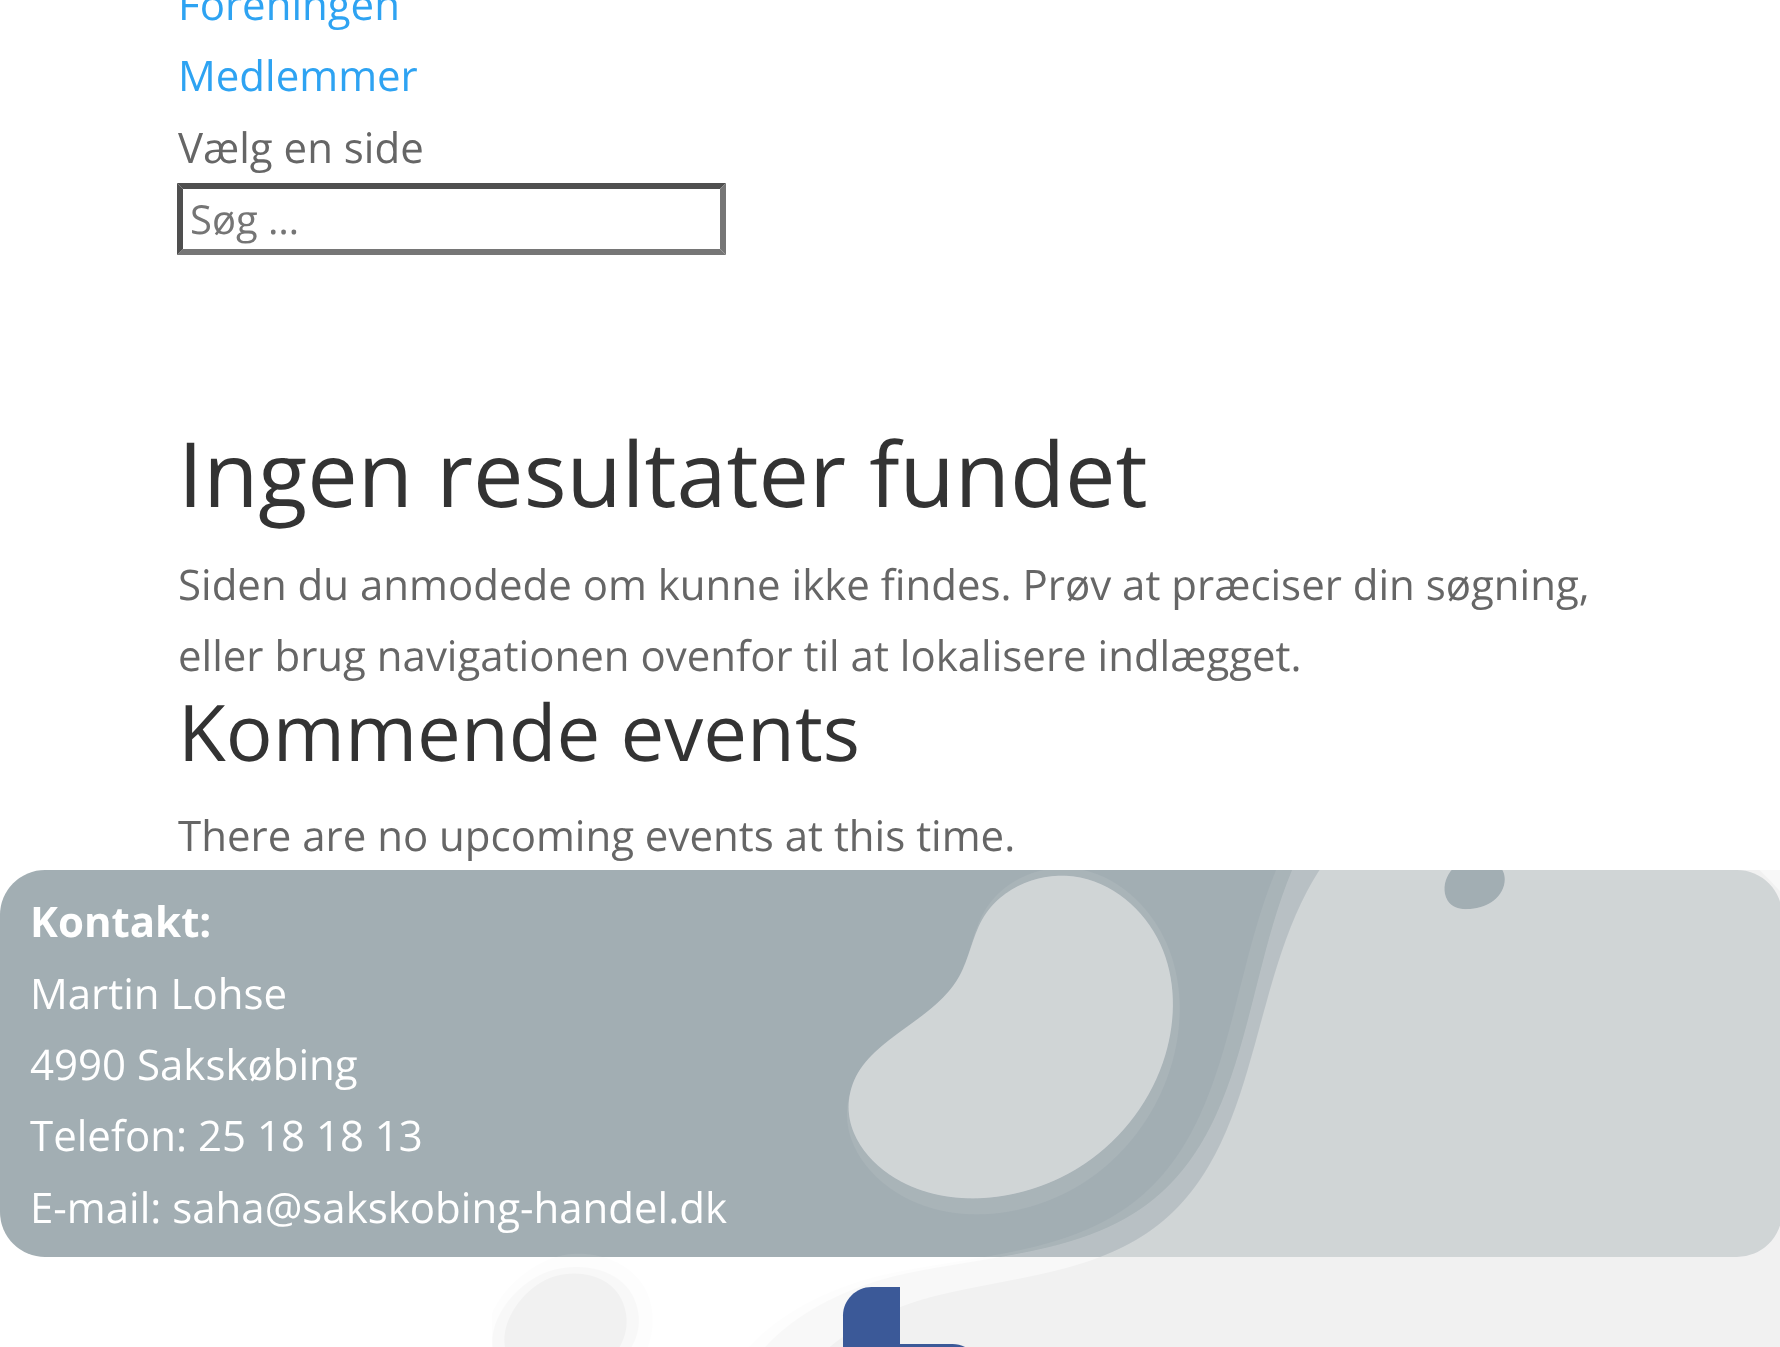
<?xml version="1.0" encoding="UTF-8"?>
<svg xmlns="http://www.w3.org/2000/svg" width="1780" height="1347">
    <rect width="100%" height="100%" fill="#FFFFFF"/>
    <text font-family="Open Sans" font-size="42" fill="#2EA3F2">
        <tspan x="178" y="20">Foreningen</tspan>
        <tspan x="178" y="91">Medlemmer</tspan>
    </text>
    <text x="178" y="163" font-family="Open Sans" font-size="42" fill="#666666">Vælg en side</text>
    <path d="M 177 183 H 726 L 720 189 H 183 Z" fill="#4F4F4F"/>
    <path d="M 726 183 V 255 L 720 249 V 189 Z" fill="#767676"/>
    <path d="M 726 255 H 177 L 183 249 H 720 Z" fill="#767676"/>
    <path d="M 177 255 V 183 L 183 189 V 249 Z" fill="#4F4F4F"/>
    <text x="190" y="234" font-family="Open Sans" font-size="40" fill="#757575">Søg …</text>
    <text x="178" y="507" font-family="Open Sans" font-size="90" fill="#333333">Ingen resultater fundet</text>
    <text font-family="Open Sans" font-size="42" fill="#666666">
        <tspan x="178" y="600">Siden du anmodede om kunne ikke findes. Prøv at præciser din søgning,</tspan>
        <tspan x="178" y="671">eller brug navigationen ovenfor til at lokalisere indlægget.</tspan>
    </text>
    <text x="178" y="761" font-family="Open Sans" font-size="78" fill="#333333">Kommende events</text>
    <text x="178" y="851" font-family="Open Sans" font-size="42" fill="#666666">There are no upcoming events at this time.</text>
    <rect x="0" y="870" width="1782" height="387" rx="45" fill="#A2AEB3"/>
    <text x="30" y="937" font-family="Open Sans" font-size="42" font-weight="700" fill="#FFFFFF">Kontakt:</text>
    <text font-family="Open Sans" font-size="42" fill="#FFFFFF">
        <tspan x="30" y="1009">Martin Lohse</tspan>
        <tspan x="30" y="1080">4990 Sakskøbing</tspan>
        <tspan x="30" y="1151">Telefon: 25 18 18 13</tspan>
    </text>
    <image x="492" y="870" width="1288" height="477" href="img_01.png"/>
    <text x="30" y="1223" font-family="Open Sans" font-size="42" fill="#FFFFFF">E-mail: saha@sakskobing-handel.dk</text>
    <path d="M 871.5 1287 H 900 V 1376 H 871.5 C 856 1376 843 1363 843 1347.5 V 1315.5 C 843 1300 856 1287 871.5 1287 Z" fill="#3B5998"/>
    <path d="M 900 1344 H 952.5 C 968 1344 981 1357 981 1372.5 V 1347.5 C 981 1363 968 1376 952.5 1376 H 900 Z" fill="#3B5998"/>
</svg>
